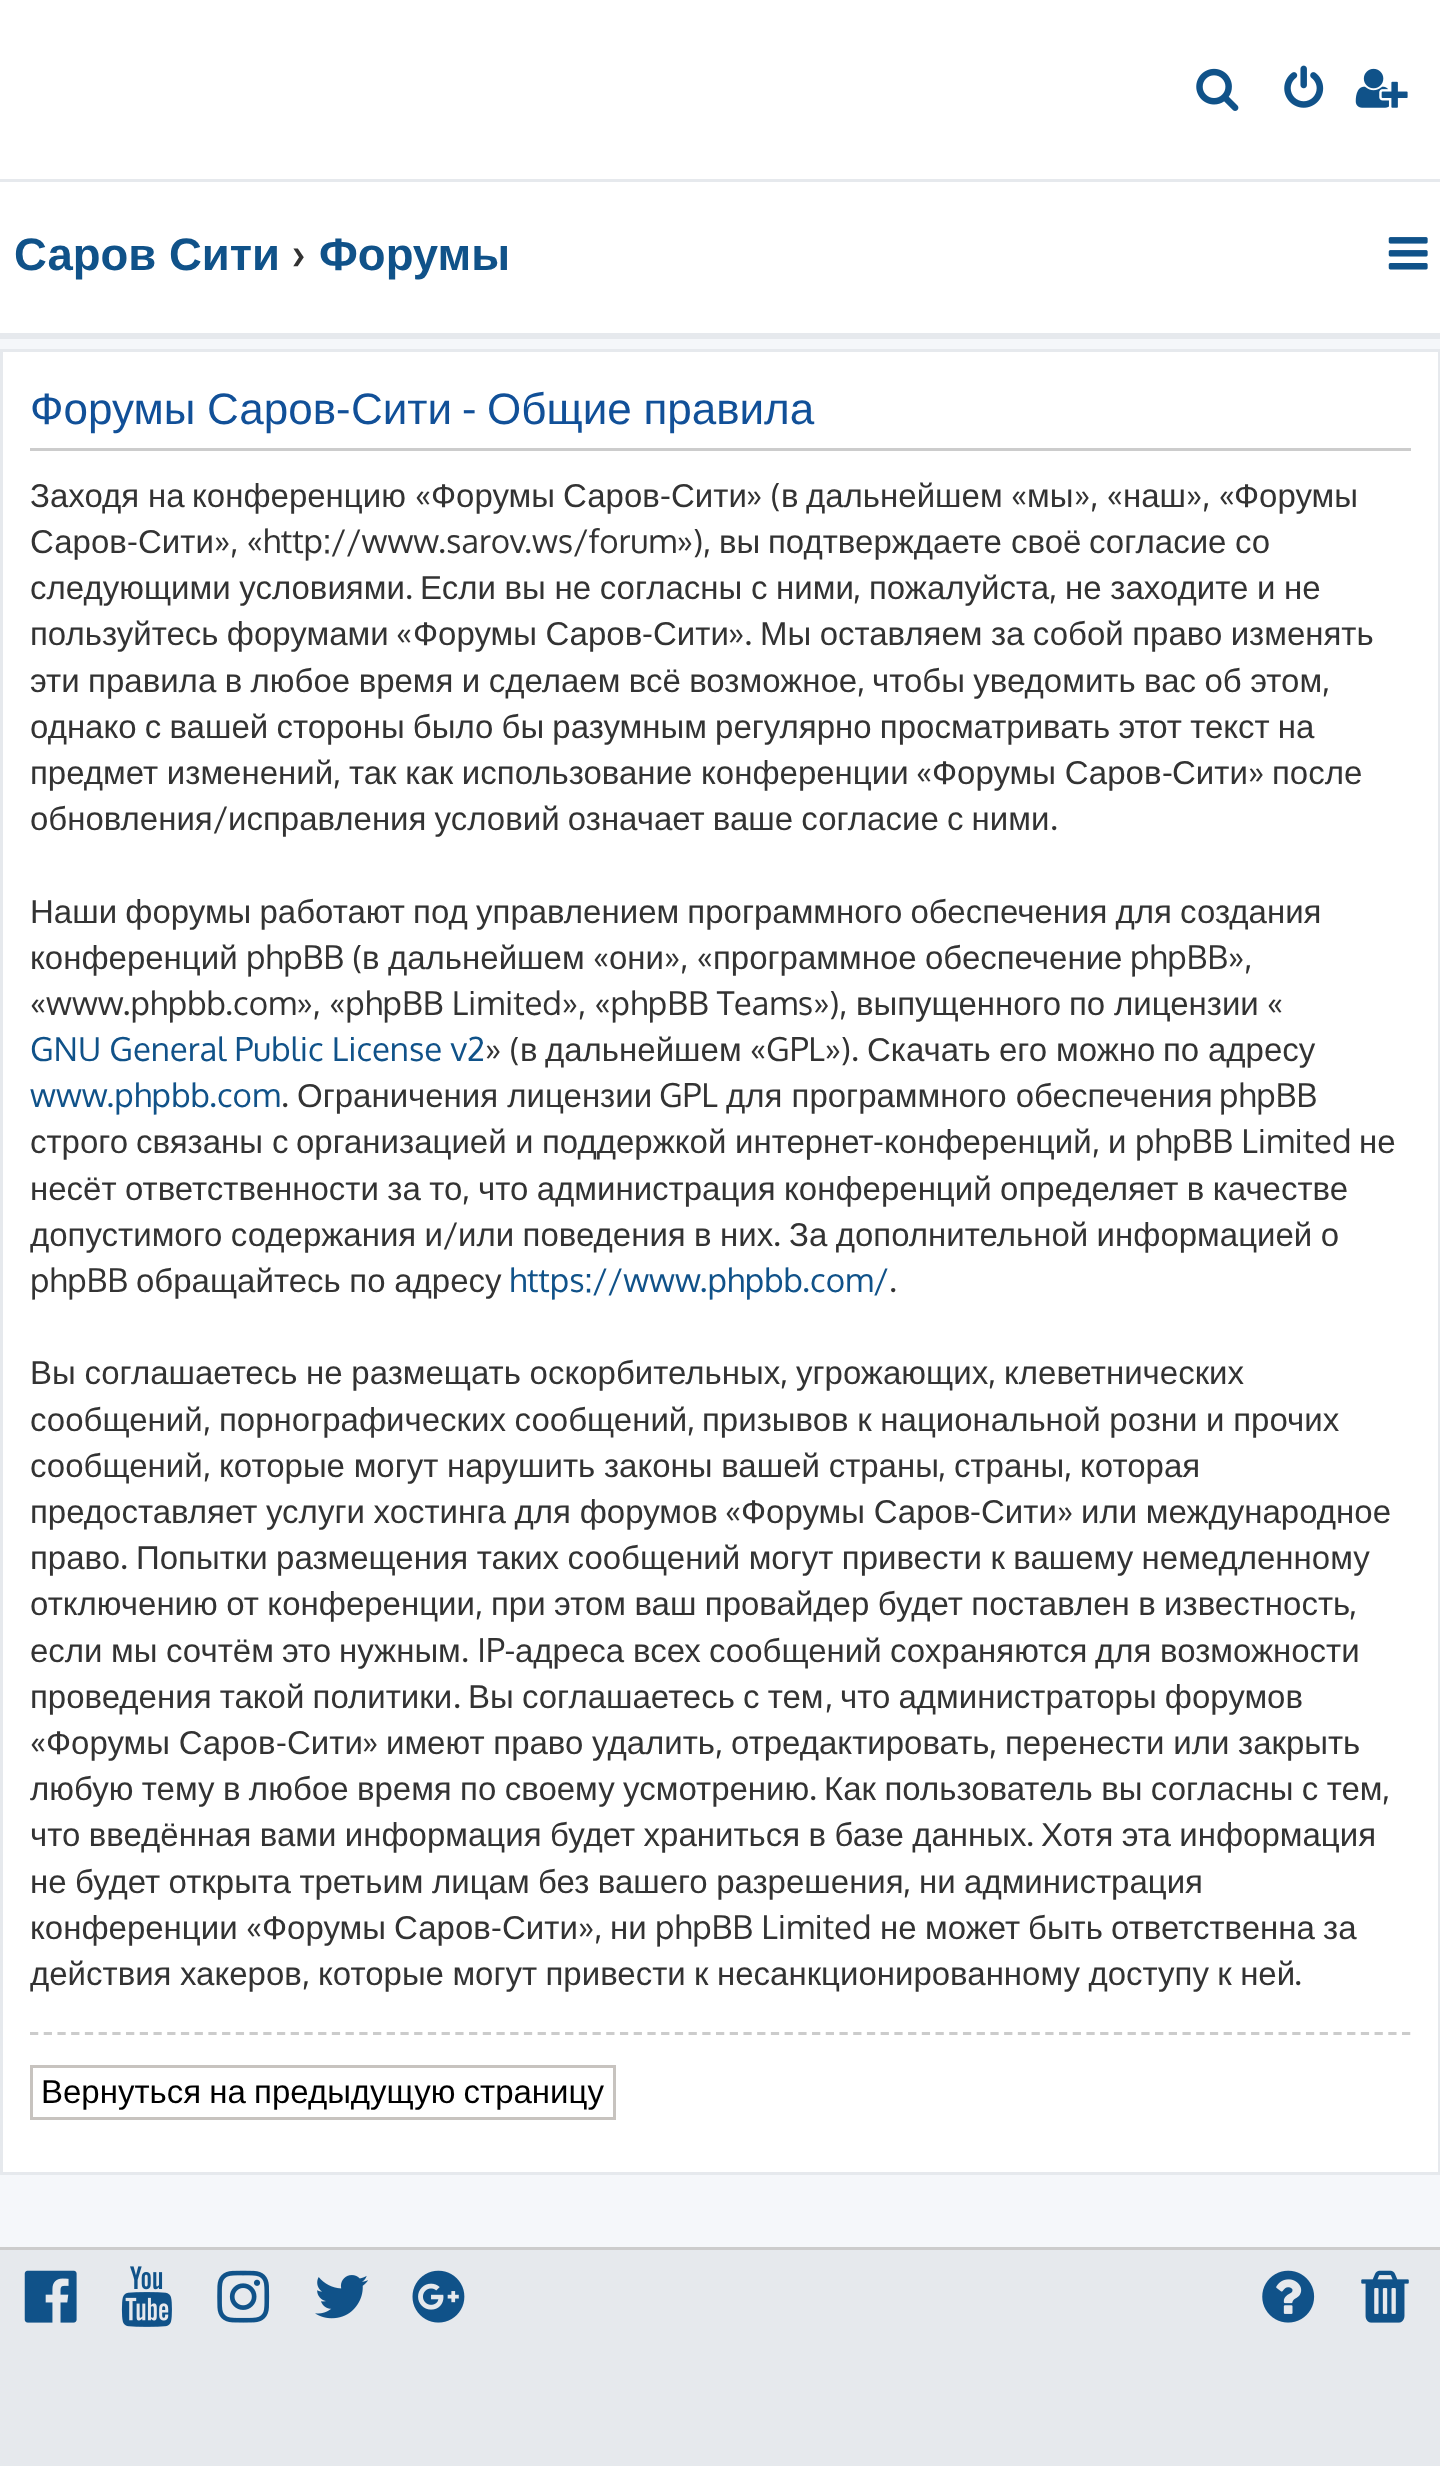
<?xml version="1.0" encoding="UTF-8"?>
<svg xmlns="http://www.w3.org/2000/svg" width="1440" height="2466">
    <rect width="100%" height="100%" fill="#F5F7FA"/>
    <rect x="0" y="0" width="1440" height="179" fill="#FFFFFF"/>
    <rect x="0" y="179" width="1440" height="3" fill="#E6E9ED"/>
    <image x="1196" y="68" width="43" height="43" href="img_01.png"/>
    <image x="1284" y="65" width="40" height="43" href="img_02.png"/>
    <image x="1355" y="68" width="53" height="40" href="img_03.png"/>
    <rect x="0" y="182" width="1440" height="151" fill="#FFFFFF"/>
    <rect x="0" y="333" width="1440" height="6" fill="#E6E9ED"/>
    <text x="14" y="270" font-family="Liberation Sans" font-size="45.5" font-weight="700" fill="#105289">Саров Сити</text>
    <text x="292" y="270" font-family="Oxygen" font-size="45.5" font-weight="700" fill="#333333">›</text>
    <text x="319" y="270" font-family="Liberation Sans" font-size="45.5" font-weight="700" fill="#105289">Форумы</text>
    <image x="1388" y="237" width="40" height="33" href="img_04.png"/>
    <rect x="1.5" y="350.5" width="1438" height="1823" fill="#FFFFFF" stroke="#E6E9ED" stroke-width="3"/>
    <rect x="30" y="448" width="1381" height="3" fill="#CCCCCC"/>
    <text x="30" y="424" word-spacing="-0.5" font-family="Liberation Sans" font-size="44" fill="#115098">Форумы Саров</text>
    <text x="336" y="424" font-family="Oxygen" font-size="44" fill="#115098">-</text>
    <text x="351" y="424" font-family="Liberation Sans" font-size="44" fill="#115098">Сити</text>
    <text x="462" y="424" font-family="Oxygen" font-size="44" fill="#115098">-</text>
    <text x="487" y="424" word-spacing="-0.5" font-family="Liberation Sans" font-size="44" fill="#115098">Общие правила</text>
    <text x="30" y="507" font-family="Liberation Sans" font-size="33" fill="#333333">Заходя</text>
    <text x="148" y="507" font-family="Liberation Sans" font-size="33" fill="#333333">на</text>
    <text x="192" y="507" font-family="Liberation Sans" font-size="33" fill="#333333">конференцию</text>
    <text x="415" y="507" font-family="Oxygen" font-size="33" fill="#333333">«</text>
    <text x="431" y="507" font-family="Liberation Sans" font-size="33" fill="#333333">Форумы</text>
    <text x="563" y="507" font-family="Liberation Sans" font-size="33" fill="#333333">Саров</text>
    <text x="660" y="507" font-family="Oxygen" font-size="33" fill="#333333">-</text>
    <text x="671" y="507" font-family="Liberation Sans" font-size="33" fill="#333333">Сити</text>
    <text x="746" y="507" font-family="Oxygen" font-size="33" fill="#333333">» (</text>
    <text x="781" y="507" font-family="Liberation Sans" font-size="33" fill="#333333">в</text>
    <text x="806" y="507" font-family="Liberation Sans" font-size="33" fill="#333333">дальнейшем</text>
    <text x="1011" y="507" font-family="Oxygen" font-size="33" fill="#333333">«</text>
    <text x="1027" y="507" font-family="Liberation Sans" font-size="33" fill="#333333">мы</text>
    <text x="1074" y="507" font-family="Oxygen" font-size="33" fill="#333333">», «</text>
    <text x="1123" y="507" font-family="Liberation Sans" font-size="33" fill="#333333">наш</text>
    <text x="1186" y="507" font-family="Oxygen" font-size="33" fill="#333333">», «</text>
    <text x="1234" y="507" font-family="Liberation Sans" font-size="33" fill="#333333">Форумы</text>
    <text x="30" y="553" font-family="Liberation Sans" font-size="33" fill="#333333">Саров</text>
    <text x="127" y="553" font-family="Oxygen" font-size="33" fill="#333333">-</text>
    <text x="138" y="553" font-family="Liberation Sans" font-size="33" fill="#333333">Сити</text>
    <text x="214" y="553" font-family="Oxygen" font-size="33" fill="#333333">», «http://www.sarov.ws/forum»),</text>
    <text x="719" y="553" font-family="Liberation Sans" font-size="33" fill="#333333">вы</text>
    <text x="768" y="553" font-family="Liberation Sans" font-size="33" fill="#333333">подтверждаете</text>
    <text x="1011" y="553" font-family="Liberation Sans" font-size="33" fill="#333333">своё</text>
    <text x="1089" y="553" font-family="Liberation Sans" font-size="33" fill="#333333">согласие</text>
    <text x="1235" y="553" font-family="Liberation Sans" font-size="33" fill="#333333">со</text>
    <text x="30" y="599" word-spacing="-0.5" font-family="Liberation Sans" font-size="33" fill="#333333">следующими условиями</text>
    <text x="405" y="599" font-family="Oxygen" font-size="33" fill="#333333">.</text>
    <text x="420" y="599" word-spacing="-0.5" font-family="Liberation Sans" font-size="33" fill="#333333">Если вы не согласны с ними</text>
    <text x="853" y="599" font-family="Oxygen" font-size="33" fill="#333333">,</text>
    <text x="869" y="599" font-family="Liberation Sans" font-size="33" fill="#333333">пожалуйста</text>
    <text x="1049" y="599" font-family="Oxygen" font-size="33" fill="#333333">,</text>
    <text x="1065" y="599" word-spacing="-0.5" font-family="Liberation Sans" font-size="33" fill="#333333">не заходите и не</text>
    <text x="30" y="645" word-spacing="-0.75" font-family="Liberation Sans" font-size="33" fill="#333333">пользуйтесь форумами</text>
    <text x="396" y="645" font-family="Oxygen" font-size="33" fill="#333333">«</text>
    <text x="413" y="645" word-spacing="-0.75" font-family="Liberation Sans" font-size="33" fill="#333333">Форумы Саров</text>
    <text x="642" y="645" font-family="Oxygen" font-size="33" fill="#333333">-</text>
    <text x="653" y="645" font-family="Liberation Sans" font-size="33" fill="#333333">Сити</text>
    <text x="728" y="645" font-family="Oxygen" font-size="33" fill="#333333">».</text>
    <text x="760" y="645" word-spacing="-0.75" font-family="Liberation Sans" font-size="33" fill="#333333">Мы оставляем за собой право изменять</text>
    <text x="30" y="692" word-spacing="-0.75" font-family="Liberation Sans" font-size="33" fill="#333333">эти правила в любое время и сделаем всё возможное</text>
    <text x="857" y="692" font-family="Oxygen" font-size="33" fill="#333333">,</text>
    <text x="872" y="692" word-spacing="-0.75" font-family="Liberation Sans" font-size="33" fill="#333333">чтобы уведомить вас об этом</text>
    <text x="1322" y="692" font-family="Oxygen" font-size="33" fill="#333333">,</text>
    <text font-family="Liberation Sans" font-size="33" fill="#333333">
        <tspan x="30" y="738" word-spacing="-1">однако с вашей стороны было бы разумным регулярно просматривать этот текст на</tspan>
        <tspan x="30" y="784" word-spacing="-0.5">предмет изменений</tspan>
    </text>
    <text x="349" y="784" word-spacing="-0.5" font-family="Liberation Sans" font-size="33" fill="#333333">так как использование конференции</text>
    <text x="916" y="784" font-family="Oxygen" font-size="33" fill="#333333">«</text>
    <text x="932" y="784" word-spacing="-0.5" font-family="Liberation Sans" font-size="33" fill="#333333">Форумы Саров</text>
    <text x="1162" y="784" font-family="Oxygen" font-size="33" fill="#333333">-</text>
    <text x="1172" y="784" font-family="Liberation Sans" font-size="33" fill="#333333">Сити</text>
    <text x="1248" y="784" font-family="Oxygen" font-size="33" fill="#333333">»</text>
    <text x="1272" y="784" font-family="Liberation Sans" font-size="33" fill="#333333">после</text>
    <text x="333" y="784" font-family="Oxygen" font-size="33" fill="#333333">,</text>
    <text x="30" y="830" font-family="Liberation Sans" font-size="33" fill="#333333">обновления</text>
    <text x="213" y="830" font-family="Oxygen" font-size="33" fill="#333333">/</text>
    <text x="228" y="830" word-spacing="-1" font-family="Liberation Sans" font-size="33" fill="#333333">исправления условий означает ваше согласие с ними</text>
    <text x="1050" y="830" font-family="Oxygen" font-size="33" fill="#333333">.</text>
    <text font-family="Liberation Sans" font-size="33" fill="#333333">
        <tspan x="30" y="923" word-spacing="-1">Наши форумы работают под управлением программного обеспечения для создания</tspan>
        <tspan x="30" y="969">конференций</tspan>
    </text>
    <text x="246" y="969" font-family="Oxygen" font-size="33" fill="#333333">phpBB (</text>
    <text x="362" y="969" font-family="Liberation Sans" font-size="33" fill="#333333">в</text>
    <text x="388" y="969" font-family="Liberation Sans" font-size="33" fill="#333333">дальнейшем</text>
    <text x="593" y="969" font-family="Oxygen" font-size="33" fill="#333333">«</text>
    <text x="609" y="969" font-family="Liberation Sans" font-size="33" fill="#333333">они</text>
    <text x="664" y="969" font-family="Oxygen" font-size="33" fill="#333333">», «</text>
    <text x="713" y="969" font-family="Liberation Sans" font-size="33" fill="#333333">программное</text>
    <text x="925" y="969" font-family="Liberation Sans" font-size="33" fill="#333333">обеспечение</text>
    <text x="1130" y="969" font-family="Oxygen" font-size="33" fill="#333333">phpBB»,</text>
    <text x="30" y="1015" font-family="Oxygen" font-size="33" fill="#333333">«www.phpbb.com», «phpBB Limited», «phpBB Teams»),</text>
    <text x="856" y="1015" font-family="Liberation Sans" font-size="33" fill="#333333">выпущенного</text>
    <text x="1069" y="1015" font-family="Liberation Sans" font-size="33" fill="#333333">по</text>
    <text x="1114" y="1015" font-family="Liberation Sans" font-size="33" fill="#333333">лицензии</text>
    <text x="1267" y="1015" font-family="Oxygen" font-size="33" fill="#333333">«</text>
    <text x="30" y="1061" font-family="Oxygen" font-size="33" fill="#105289">GNU General Public License v2</text>
    <text x="485" y="1061" font-family="Oxygen" font-size="33" fill="#333333">» (</text>
    <text x="520" y="1061" font-family="Liberation Sans" font-size="33" fill="#333333">в</text>
    <text x="545" y="1061" font-family="Liberation Sans" font-size="33" fill="#333333">дальнейшем</text>
    <text x="750" y="1061" font-family="Oxygen" font-size="33" fill="#333333">«GPL»).</text>
    <text x="867" y="1061" font-family="Liberation Sans" font-size="33" fill="#333333">Скачать</text>
    <text x="999" y="1061" font-family="Liberation Sans" font-size="33" fill="#333333">его</text>
    <text x="1056" y="1061" font-family="Liberation Sans" font-size="33" fill="#333333">можно</text>
    <text x="1163" y="1061" font-family="Liberation Sans" font-size="33" fill="#333333">по</text>
    <text x="1208" y="1061" font-family="Liberation Sans" font-size="33" fill="#333333">адресу</text>
    <text x="30" y="1107" font-family="Oxygen" font-size="33" fill="#105289">www.phpbb.com</text>
    <text x="281" y="1107" font-family="Oxygen" font-size="33" fill="#333333">.</text>
    <text x="297" y="1107" font-family="Liberation Sans" font-size="33" fill="#333333">Ограничения лицензии</text>
    <text x="659" y="1107" font-family="Oxygen" font-size="33" fill="#333333">GPL</text>
    <text x="726" y="1107" font-family="Liberation Sans" font-size="33" fill="#333333">для программного обеспечения</text>
    <text x="1219" y="1107" font-family="Oxygen" font-size="33" fill="#333333">phpBB</text>
    <text x="30" y="1153" font-family="Liberation Sans" font-size="33" fill="#333333">строго</text>
    <text x="136" y="1153" font-family="Liberation Sans" font-size="33" fill="#333333">связаны</text>
    <text x="272" y="1153" font-family="Liberation Sans" font-size="33" fill="#333333">с</text>
    <text x="296" y="1153" font-family="Liberation Sans" font-size="33" fill="#333333">организацией</text>
    <text x="515" y="1153" font-family="Liberation Sans" font-size="33" fill="#333333">и</text>
    <text x="542" y="1153" font-family="Liberation Sans" font-size="33" fill="#333333">поддержкой</text>
    <text x="735" y="1153" font-family="Liberation Sans" font-size="33" fill="#333333">интернет</text>
    <text x="873" y="1153" font-family="Oxygen" font-size="33" fill="#333333">-</text>
    <text x="884" y="1153" font-family="Liberation Sans" font-size="33" fill="#333333">конференций</text>
    <text x="1108" y="1153" font-family="Liberation Sans" font-size="33" fill="#333333">и</text>
    <text x="1135" y="1153" font-family="Oxygen" font-size="33" fill="#333333">phpBB Limited</text>
    <text x="1359" y="1153" font-family="Liberation Sans" font-size="33" fill="#333333">не</text>
    <text x="1092" y="1153" font-family="Oxygen" font-size="33" fill="#333333">,</text>
    <text x="30" y="1200" word-spacing="-0.75" font-family="Liberation Sans" font-size="33" fill="#333333">несёт ответственности за то</text>
    <text x="462" y="1200" font-family="Oxygen" font-size="33" fill="#333333">,</text>
    <text x="478" y="1200" word-spacing="-0.75" font-family="Liberation Sans" font-size="33" fill="#333333">что администрация конференций определяет в качестве</text>
    <text x="30" y="1246" word-spacing="-0.75" font-family="Liberation Sans" font-size="33" fill="#333333">допустимого содержания и</text>
    <text x="443" y="1246" font-family="Oxygen" font-size="33" fill="#333333">/</text>
    <text x="458" y="1246" word-spacing="-0.75" font-family="Liberation Sans" font-size="33" fill="#333333">или поведения в них</text>
    <text x="773" y="1246" font-family="Oxygen" font-size="33" fill="#333333">.</text>
    <text x="789" y="1246" word-spacing="-0.75" font-family="Liberation Sans" font-size="33" fill="#333333">За дополнительной информацией о</text>
    <text x="30" y="1292" font-family="Oxygen" font-size="33" fill="#333333">phpBB</text>
    <text x="136" y="1292" word-spacing="-0.5" font-family="Liberation Sans" font-size="33" fill="#333333">обращайтесь по адресу</text>
    <text x="509" y="1292" font-family="Oxygen" font-size="33" fill="#105289">https://www.phpbb.com/</text>
    <text x="889" y="1292" font-family="Oxygen" font-size="33" fill="#333333">.</text>
    <text x="30" y="1384" word-spacing="-0.5" font-family="Liberation Sans" font-size="33" fill="#333333">Вы соглашаетесь не размещать оскорбительных</text>
    <text x="780" y="1384" font-family="Oxygen" font-size="33" fill="#333333">,</text>
    <text x="796" y="1384" font-family="Liberation Sans" font-size="33" fill="#333333">угрожающих</text>
    <text x="988" y="1384" font-family="Oxygen" font-size="33" fill="#333333">,</text>
    <text x="1004" y="1384" font-family="Liberation Sans" font-size="33" fill="#333333">клеветнических</text>
    <text x="30" y="1431" font-family="Liberation Sans" font-size="33" fill="#333333">сообщений</text>
    <text x="203" y="1431" font-family="Oxygen" font-size="33" fill="#333333">,</text>
    <text x="219" y="1431" word-spacing="-0.5" font-family="Liberation Sans" font-size="33" fill="#333333">порнографических сообщений</text>
    <text x="687" y="1431" font-family="Oxygen" font-size="33" fill="#333333">,</text>
    <text x="702" y="1431" word-spacing="-0.5" font-family="Liberation Sans" font-size="33" fill="#333333">призывов к национальной розни и прочих</text>
    <text x="30" y="1477" font-family="Liberation Sans" font-size="33" fill="#333333">сообщений</text>
    <text x="203" y="1477" font-family="Oxygen" font-size="33" fill="#333333">,</text>
    <text x="219" y="1477" word-spacing="-0.5" font-family="Liberation Sans" font-size="33" fill="#333333">которые могут нарушить законы вашей страны</text>
    <text x="938" y="1477" font-family="Oxygen" font-size="33" fill="#333333">,</text>
    <text x="954" y="1477" font-family="Liberation Sans" font-size="33" fill="#333333">страны</text>
    <text x="1064" y="1477" font-family="Oxygen" font-size="33" fill="#333333">,</text>
    <text x="1080" y="1477" font-family="Liberation Sans" font-size="33" fill="#333333">которая</text>
    <text x="30" y="1523" word-spacing="-0.5" font-family="Liberation Sans" font-size="33" fill="#333333">предоставляет услуги хостинга для форумов</text>
    <text x="725" y="1523" font-family="Oxygen" font-size="33" fill="#333333">«</text>
    <text x="741" y="1523" word-spacing="-0.5" font-family="Liberation Sans" font-size="33" fill="#333333">Форумы Саров</text>
    <text x="970" y="1523" font-family="Oxygen" font-size="33" fill="#333333">-</text>
    <text x="981" y="1523" font-family="Liberation Sans" font-size="33" fill="#333333">Сити</text>
    <text x="1057" y="1523" font-family="Oxygen" font-size="33" fill="#333333">»</text>
    <text x="1081" y="1523" word-spacing="-0.5" font-family="Liberation Sans" font-size="33" fill="#333333">или международное</text>
    <text x="30" y="1569" font-family="Liberation Sans" font-size="33" fill="#333333">право</text>
    <text x="120" y="1569" font-family="Oxygen" font-size="33" fill="#333333">.</text>
    <text x="136" y="1569" word-spacing="-0.75" font-family="Liberation Sans" font-size="33" fill="#333333">Попытки размещения таких сообщений могут привести к вашему немедленному</text>
    <text x="30" y="1615" word-spacing="-0.75" font-family="Liberation Sans" font-size="33" fill="#333333">отключению от конференции</text>
    <text x="475" y="1615" font-family="Oxygen" font-size="33" fill="#333333">,</text>
    <text x="491" y="1615" word-spacing="-0.75" font-family="Liberation Sans" font-size="33" fill="#333333">при этом ваш провайдер будет поставлен в известность</text>
    <text x="1349" y="1615" font-family="Oxygen" font-size="33" fill="#333333">,</text>
    <text x="30" y="1662" font-family="Liberation Sans" font-size="33" fill="#333333">если</text>
    <text x="111" y="1662" font-family="Liberation Sans" font-size="33" fill="#333333">мы</text>
    <text x="166" y="1662" font-family="Liberation Sans" font-size="33" fill="#333333">сочтём</text>
    <text x="282" y="1662" font-family="Liberation Sans" font-size="33" fill="#333333">это</text>
    <text x="339" y="1662" font-family="Liberation Sans" font-size="33" fill="#333333">нужным</text>
    <text x="461" y="1662" font-family="Oxygen" font-size="33" fill="#333333">. IP-</text>
    <text x="515" y="1662" font-family="Liberation Sans" font-size="33" fill="#333333">адреса</text>
    <text x="633" y="1662" font-family="Liberation Sans" font-size="33" fill="#333333">всех</text>
    <text x="709" y="1662" font-family="Liberation Sans" font-size="33" fill="#333333">сообщений</text>
    <text x="890" y="1662" font-family="Liberation Sans" font-size="33" fill="#333333">сохраняются</text>
    <text x="1095" y="1662" font-family="Liberation Sans" font-size="33" fill="#333333">для</text>
    <text x="1160" y="1662" font-family="Liberation Sans" font-size="33" fill="#333333">возможности</text>
    <text x="30" y="1708" word-spacing="-1" font-family="Liberation Sans" font-size="33" fill="#333333">проведения такой политики</text>
    <text x="453" y="1708" font-family="Oxygen" font-size="33" fill="#333333">.</text>
    <text x="468" y="1708" word-spacing="-1" font-family="Liberation Sans" font-size="33" fill="#333333">Вы соглашаетесь с тем</text>
    <text x="825" y="1708" font-family="Oxygen" font-size="33" fill="#333333">,</text>
    <text x="840" y="1708" word-spacing="-1" font-family="Liberation Sans" font-size="33" fill="#333333">что администраторы форумов</text>
    <text x="30" y="1754" font-family="Oxygen" font-size="33" fill="#333333">«</text>
    <text x="46" y="1754" word-spacing="-0.5" font-family="Liberation Sans" font-size="33" fill="#333333">Форумы Саров</text>
    <text x="276" y="1754" font-family="Oxygen" font-size="33" fill="#333333">-</text>
    <text x="287" y="1754" font-family="Liberation Sans" font-size="33" fill="#333333">Сити</text>
    <text x="362" y="1754" font-family="Oxygen" font-size="33" fill="#333333">»</text>
    <text x="386" y="1754" word-spacing="-0.5" font-family="Liberation Sans" font-size="33" fill="#333333">имеют право удалить</text>
    <text x="731" y="1754" font-family="Liberation Sans" font-size="33" fill="#333333">отредактировать</text>
    <text x="1005" y="1754" word-spacing="-0.5" font-family="Liberation Sans" font-size="33" fill="#333333">перенести или закрыть</text>
    <text x="715" y="1754" font-family="Oxygen" font-size="33" fill="#333333">,</text>
    <text x="989" y="1754" font-family="Oxygen" font-size="33" fill="#333333">,</text>
    <text x="30" y="1800" word-spacing="-0.75" font-family="Liberation Sans" font-size="33" fill="#333333">любую тему в любое время по своему усмотрению</text>
    <text x="809" y="1800" font-family="Oxygen" font-size="33" fill="#333333">.</text>
    <text x="824" y="1800" word-spacing="-0.75" font-family="Liberation Sans" font-size="33" fill="#333333">Как пользователь вы согласны с тем</text>
    <text x="1382" y="1800" font-family="Oxygen" font-size="33" fill="#333333">,</text>
    <text x="30" y="1846" word-spacing="-0.75" font-family="Liberation Sans" font-size="33" fill="#333333">что введённая вами информация будет храниться в базе данных</text>
    <text x="1026" y="1846" font-family="Oxygen" font-size="33" fill="#333333">.</text>
    <text x="1041" y="1846" word-spacing="-0.75" font-family="Liberation Sans" font-size="33" fill="#333333">Хотя эта информация</text>
    <text x="30" y="1893" word-spacing="-0.75" font-family="Liberation Sans" font-size="33" fill="#333333">не будет открыта третьим лицам без вашего разрешения</text>
    <text x="903" y="1893" font-family="Oxygen" font-size="33" fill="#333333">,</text>
    <text x="919" y="1893" word-spacing="-0.75" font-family="Liberation Sans" font-size="33" fill="#333333">ни администрация</text>
    <text x="30" y="1939" font-family="Liberation Sans" font-size="33" fill="#333333">конференции</text>
    <text x="246" y="1939" font-family="Oxygen" font-size="33" fill="#333333">«</text>
    <text x="262" y="1939" font-family="Liberation Sans" font-size="33" fill="#333333">Форумы</text>
    <text x="394" y="1939" font-family="Liberation Sans" font-size="33" fill="#333333">Саров</text>
    <text x="491" y="1939" font-family="Oxygen" font-size="33" fill="#333333">-</text>
    <text x="502" y="1939" font-family="Liberation Sans" font-size="33" fill="#333333">Сити</text>
    <text x="578" y="1939" font-family="Oxygen" font-size="33" fill="#333333">»,</text>
    <text x="610" y="1939" font-family="Liberation Sans" font-size="33" fill="#333333">ни</text>
    <text x="655" y="1939" font-family="Oxygen" font-size="33" fill="#333333">phpBB Limited</text>
    <text x="880" y="1939" font-family="Liberation Sans" font-size="33" fill="#333333">не</text>
    <text x="925" y="1939" font-family="Liberation Sans" font-size="33" fill="#333333">может</text>
    <text x="1028" y="1939" font-family="Liberation Sans" font-size="33" fill="#333333">быть</text>
    <text x="1111" y="1939" font-family="Liberation Sans" font-size="33" fill="#333333">ответственна</text>
    <text x="1323" y="1939" font-family="Liberation Sans" font-size="33" fill="#333333">за</text>
    <text x="30" y="1985" word-spacing="-0.75" font-family="Liberation Sans" font-size="33" fill="#333333">действия хакеров</text>
    <text x="302" y="1985" font-family="Oxygen" font-size="33" fill="#333333">,</text>
    <text x="318" y="1985" word-spacing="-0.75" font-family="Liberation Sans" font-size="33" fill="#333333">которые могут привести к несанкционированному доступу к ней</text>
    <text x="1294" y="1985" font-family="Oxygen" font-size="33" fill="#333333">.</text>
    <path d="M 30 2033.5 H 1411" fill="none" stroke="#CCCCCC" stroke-width="2.8" stroke-dasharray="8.25 5.47"/>
    <rect x="31.5" y="2066.5" width="583" height="52" fill="none" stroke="#C7C3BF" stroke-width="3"/>
    <text x="41" y="2103" word-spacing="-1" font-family="Liberation Sans" font-size="33" fill="#000000">Вернуться на предыдущую страницу</text>
    <rect x="0" y="2250" width="1440" height="216" fill="#E6E9ED"/>
    <rect x="0" y="2247" width="1440" height="3" fill="#CCCCCC"/>
    <image x="24" y="2270" width="53" height="53" href="img_05.png"/>
    <image x="121" y="2266" width="51" height="61" href="img_06.png"/>
    <image x="217" y="2270" width="53" height="53" href="img_07.png"/>
    <image x="315" y="2275" width="53" height="44" href="img_08.png"/>
    <image x="412" y="2270" width="53" height="53" href="img_09.png"/>
    <image x="1262" y="2270" width="53" height="53" href="img_10.png"/>
    <image x="1361" y="2270" width="48" height="53" href="img_11.png"/>
</svg>
